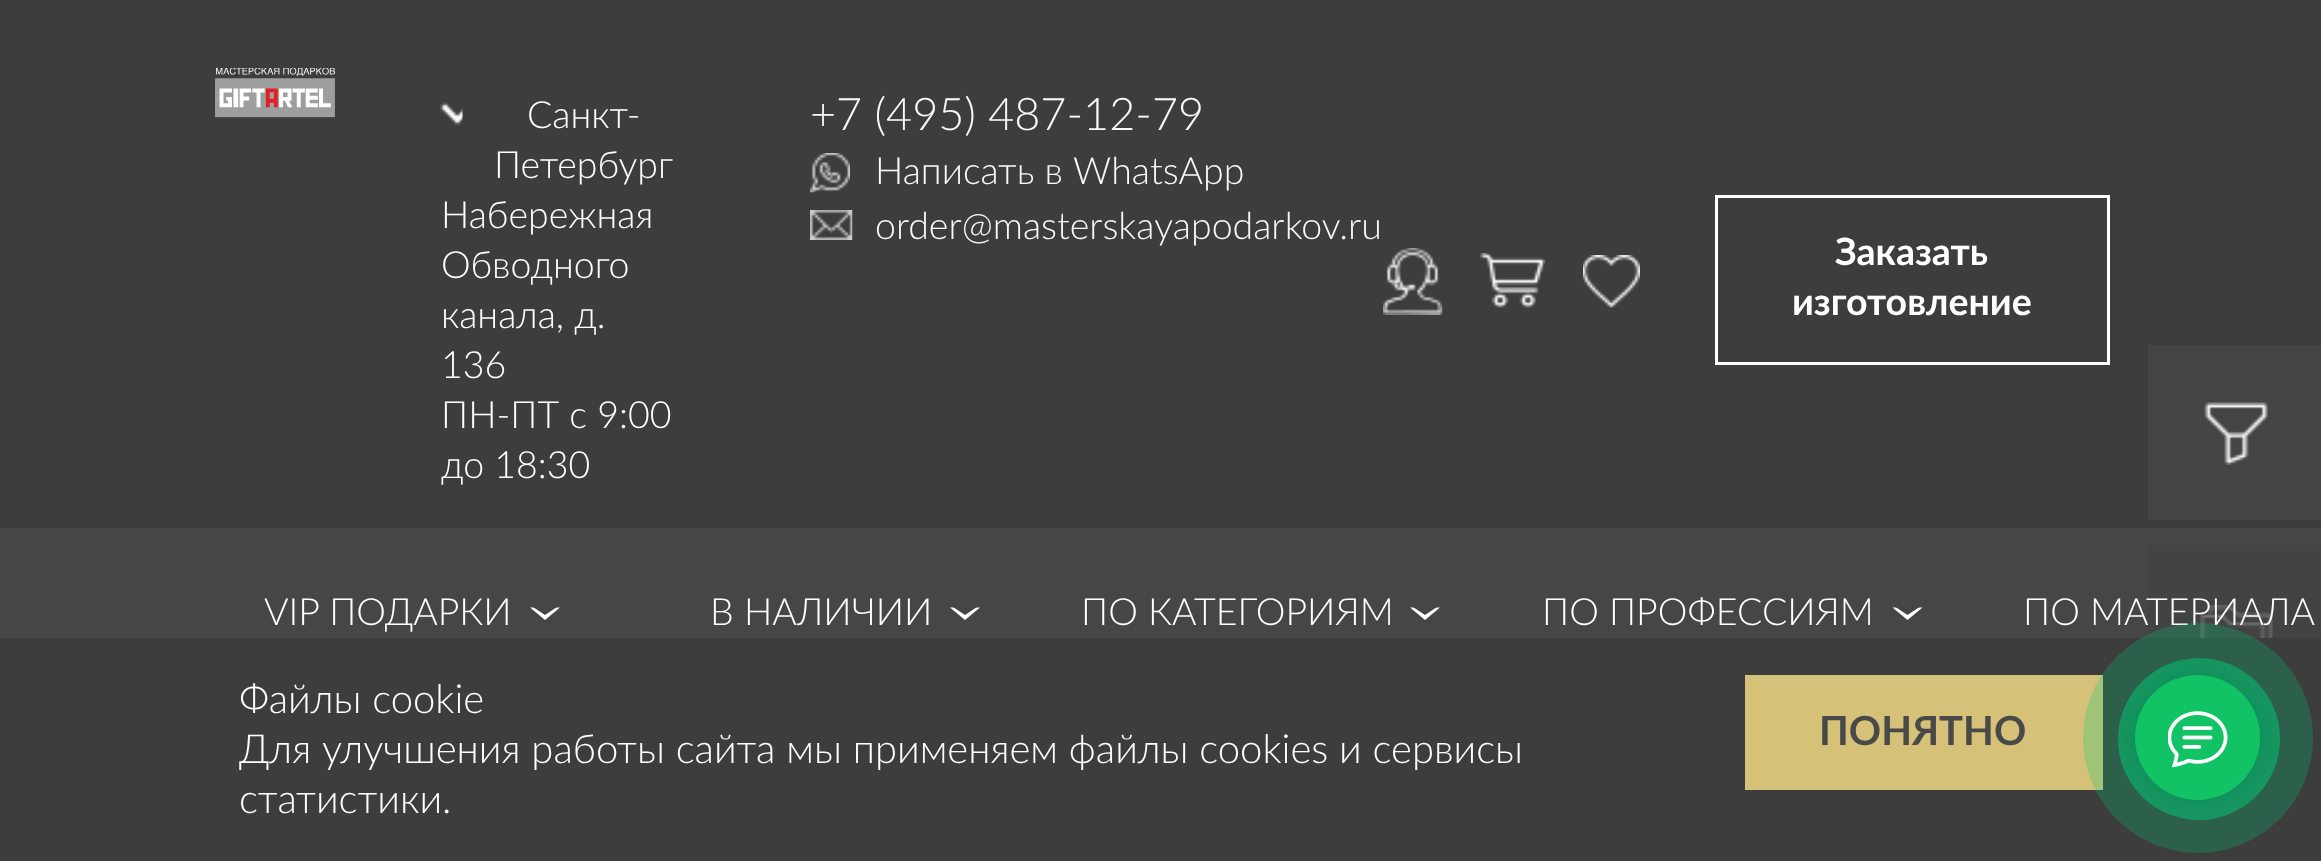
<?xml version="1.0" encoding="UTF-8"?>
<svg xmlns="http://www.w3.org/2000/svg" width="2321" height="861">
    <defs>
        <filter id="blur1" x="-50%" y="-200%" width="200%" height="500%"><feGaussianBlur stdDeviation="12.5"/></filter>
    </defs>
    <rect width="100%" height="100%" fill="#464646"/>
    <rect x="0" y="0" width="2321" height="528" fill="#3D3D3D"/>
    <image x="215" y="68" width="120" height="50" href="img_01.png"/>
    <image x="440" y="102" width="23" height="23" href="img_02.png"/>
    <text x="527" y="128" font-family="Lato" font-size="37.5" font-weight="300" fill="#FFFFFF">Санкт-</text>
    <text x="494" y="178" font-family="Lato" font-size="37.5" font-weight="300" fill="#FFFFFF">Петербург</text>
    <text font-family="Lato" font-size="37.5" font-weight="300" fill="#FFFFFF">
        <tspan x="441" y="228">Набережная</tspan>
        <tspan x="441" y="278">Обводного</tspan>
        <tspan x="441" y="328">канала, д.</tspan>
        <tspan x="441" y="378">136</tspan>
        <tspan x="441" y="428">ПН-ПТ с 9:00</tspan>
        <tspan x="441" y="478">до 18:30</tspan>
    </text>
    <text x="810" y="130" font-family="Lato" font-size="45" font-weight="300" fill="#F9F9F9">+7 (495) 487-12-79</text>
    <image x="810" y="153" width="40" height="40" href="img_03.png"/>
    <text x="875" y="184" font-family="Lato" font-size="37.5" font-weight="300" fill="#F9F9F9">Написать в WhatsApp</text>
    <image x="810" y="210" width="43" height="30" href="img_04.png"/>
    <text x="875" y="239" font-family="Lato" font-size="37.5" font-weight="300" fill="#F9F9F9">order@masterskayapodarkov.ru</text>
    <image x="1383" y="248" width="60" height="67" href="img_05.png"/>
    <image x="1480" y="253" width="65" height="55" href="img_06.png"/>
    <image x="1583" y="255" width="57" height="53" href="img_07.png"/>
    <rect x="1716.5" y="196.5" width="392" height="167" fill="none" stroke="#FFFFFF" stroke-width="3"/>
    <text x="1835" y="265" font-family="Lato" font-size="37.5" font-weight="700" fill="#FFFFFF">Заказать</text>
    <text x="1792" y="315" font-family="Lato" font-size="37.5" font-weight="700" fill="#FFFFFF">изготовление</text>
    <rect x="2148" y="345" width="173" height="175" fill="#444444"/>
    <image x="2204" y="402" width="64" height="63" href="img_08.png"/>
    <rect x="2148" y="545" width="173" height="93" fill="#434343"/>
    <image x="2200" y="605" width="73" height="33" href="img_09.png"/>
    <text x="264" y="625" font-family="Lato" font-size="37.5" font-weight="300" fill="#FFFFFF">VIP ПОДАРКИ</text>
    <path d="M 530 607.5 H 560 L 545 620 Z" fill="#FFFFFF"/>
    <path d="M 530 605 H 560 L 545 615 Z" fill="#454545"/>
    <text x="710" y="625" font-family="Lato" font-size="37.5" font-weight="300" fill="#FFFFFF">В НАЛИЧИИ</text>
    <path d="M 950 607.5 H 980 L 965 620 Z" fill="#FFFFFF"/>
    <path d="M 950 605 H 980 L 965 615 Z" fill="#454545"/>
    <text x="1081" y="625" font-family="Lato" font-size="37.5" font-weight="300" fill="#FFFFFF">ПО КАТЕГОРИЯМ</text>
    <path d="M 1410 607.5 H 1440 L 1425 620 Z" fill="#FFFFFF"/>
    <path d="M 1410 605 H 1440 L 1425 615 Z" fill="#454545"/>
    <text x="1542" y="625" font-family="Lato" font-size="37.5" font-weight="300" fill="#FFFFFF">ПО ПРОФЕССИЯМ</text>
    <path d="M 1892.5 607.5 H 1922.5 L 1907.5 620 Z" fill="#FFFFFF"/>
    <path d="M 1892.5 605 H 1922.5 L 1907.5 615 Z" fill="#454545"/>
    <text x="2023" y="625" font-family="Lato" font-size="37.5" font-weight="300" fill="#FFFFFF">ПО МАТЕРИАЛА</text>
    <rect x="0" y="638" width="2321" height="223" fill="#3D3D3D"/>
    <text font-family="Lato" font-size="40" font-weight="300" fill="#FFFFFF">
        <tspan x="239" y="713">Файлы cookie</tspan>
        <tspan x="239" y="763">Для улучшения работы сайта мы применяем файлы cookies и сервисы</tspan>
        <tspan x="239" y="813">статистики.</tspan>
    </text>
    <rect x="1745" y="675" width="358" height="115" fill="#D5C278"/>
    <text x="1819" y="745" font-family="Lato" font-size="40" font-weight="700" fill="#494949">ПОНЯТНО</text>
    <rect x="2135" y="675" width="125" height="125" rx="62.5" fill="#000000" fill-opacity="0.5" filter="url(#blur1)"/>
    <circle cx="2197.5" cy="737.5" r="62.5" fill="#2FB644"/>
    <circle cx="2199" cy="739" r="81" fill="#00CC78" fill-opacity="0.5"/>
    <circle cx="2198" cy="738" r="115" fill="#00CC78" fill-opacity="0.25"/>
    <image x="2168" y="711" width="60" height="57" href="img_10.png"/>
</svg>
